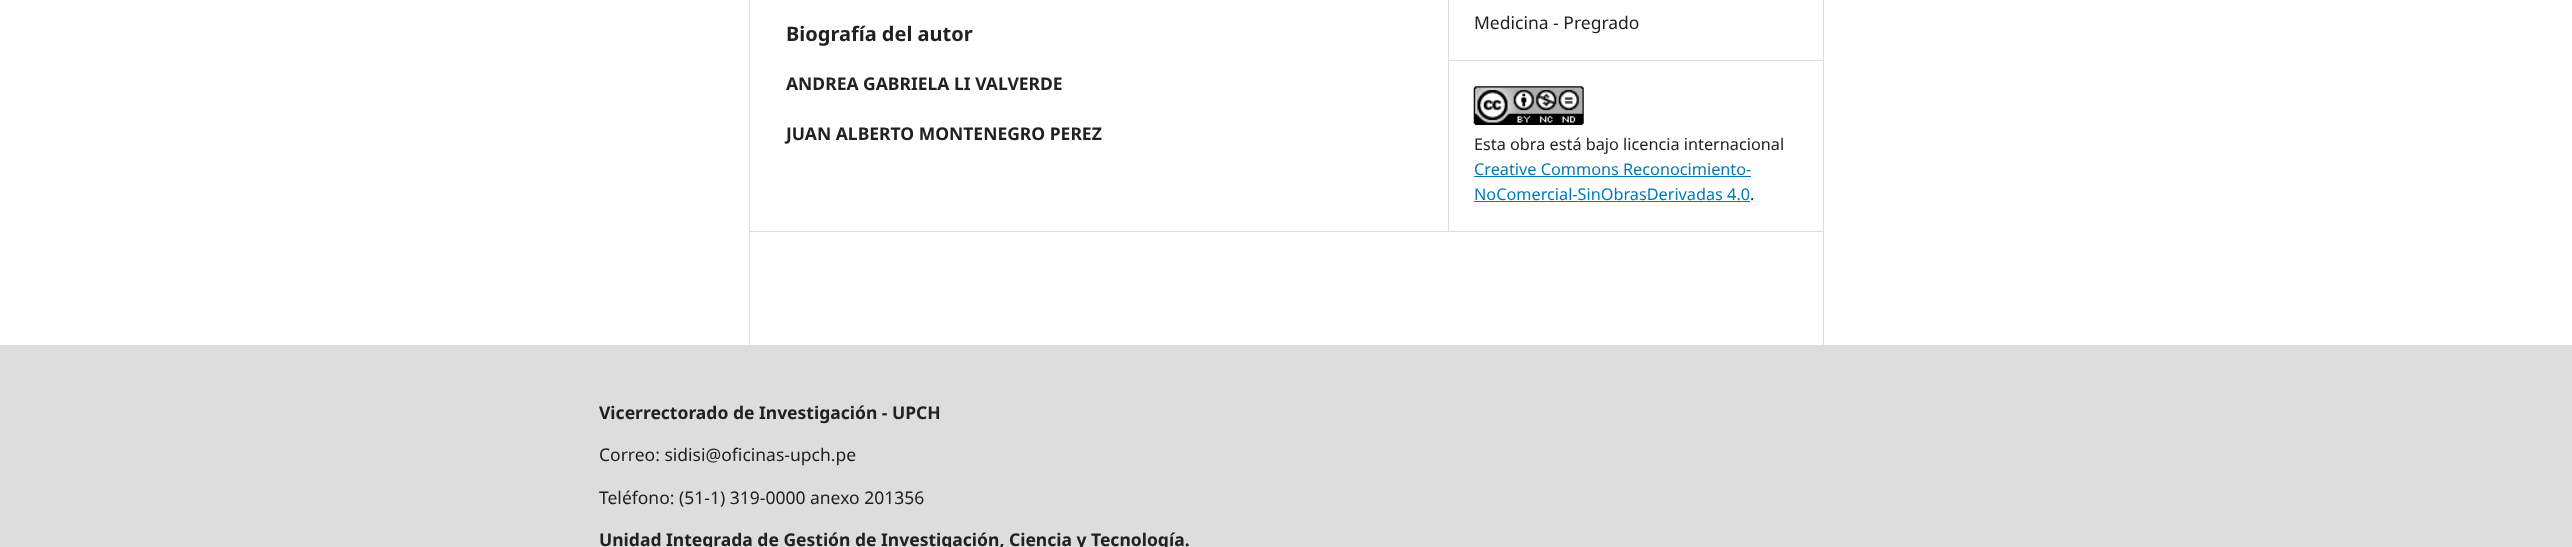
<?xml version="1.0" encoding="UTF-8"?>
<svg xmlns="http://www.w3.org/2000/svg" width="2572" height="547">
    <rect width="100%" height="100%" fill="#FFFFFF"/>
    <rect x="749" y="231" width="1075" height="1" fill="#DDDDDD"/>
    <rect x="749" y="0" width="1" height="345" fill="#DDDDDD"/>
    <text x="786" y="41" font-family="Noto Sans" font-size="20" font-weight="700" fill="#212121">Biografía del autor</text>
    <text x="786" y="90" font-family="Noto Sans" font-size="17.5" font-weight="700" fill="#212121">ANDREA GABRIELA LI VALVERDE</text>
    <text x="786" y="140" font-family="Noto Sans" font-size="17.5" font-weight="700" fill="#212121">JUAN ALBERTO MONTENEGRO PEREZ</text>
    <rect x="1448" y="0" width="1" height="231" fill="#DDDDDD"/>
    <rect x="1449" y="60" width="375" height="1" fill="#DDDDDD"/>
    <text x="1474" y="29" font-family="Noto Sans" font-size="17.5" fill="#212121">Medicina - Pregrado</text>
    <image x="1473" y="86" width="111" height="39" href="img_01.png"/>
    <text x="1474" y="150" font-family="Noto Sans" font-size="16.25" fill="#212121">Esta obra está bajo licencia internacional</text>
    <text x="1474" y="175" font-family="Noto Sans" font-size="16.25" fill="#007AB2">Creative Commons Reconocimiento-</text>
    <rect x="1474" y="176" width="277" height="1" fill="#007AB2"/>
    <text x="1474" y="200" font-family="Noto Sans" font-size="16.25" fill="#007AB2">NoComercial-SinObrasDerivadas 4.0</text>
    <rect x="1474" y="201" width="276" height="1" fill="#007AB2"/>
    <text x="1750" y="200" font-family="Noto Sans" font-size="16.25" fill="#212121">.</text>
    <rect x="1823" y="0" width="1" height="345" fill="#DDDDDD"/>
    <rect x="0" y="345" width="2572" height="202" fill="#DDDDDD"/>
    <text x="599" y="419" font-family="Noto Sans" font-size="17.5" font-weight="700" fill="#212121">Vicerrectorado de Investigación - UPCH</text>
    <text x="599" y="461" font-family="Noto Sans" font-size="17.5" fill="#212121">Correo: sidisi@oficinas-upch.pe</text>
    <text x="599" y="504" font-family="Noto Sans" font-size="17.5" fill="#212121">Teléfono: (51-1) 319-0000 anexo 201356</text>
    <text x="599" y="546" font-family="Noto Sans" font-size="17.5" font-weight="700" fill="#212121">Unidad Integrada de Gestión de Investigación, Ciencia y Tecnología.</text>
</svg>
